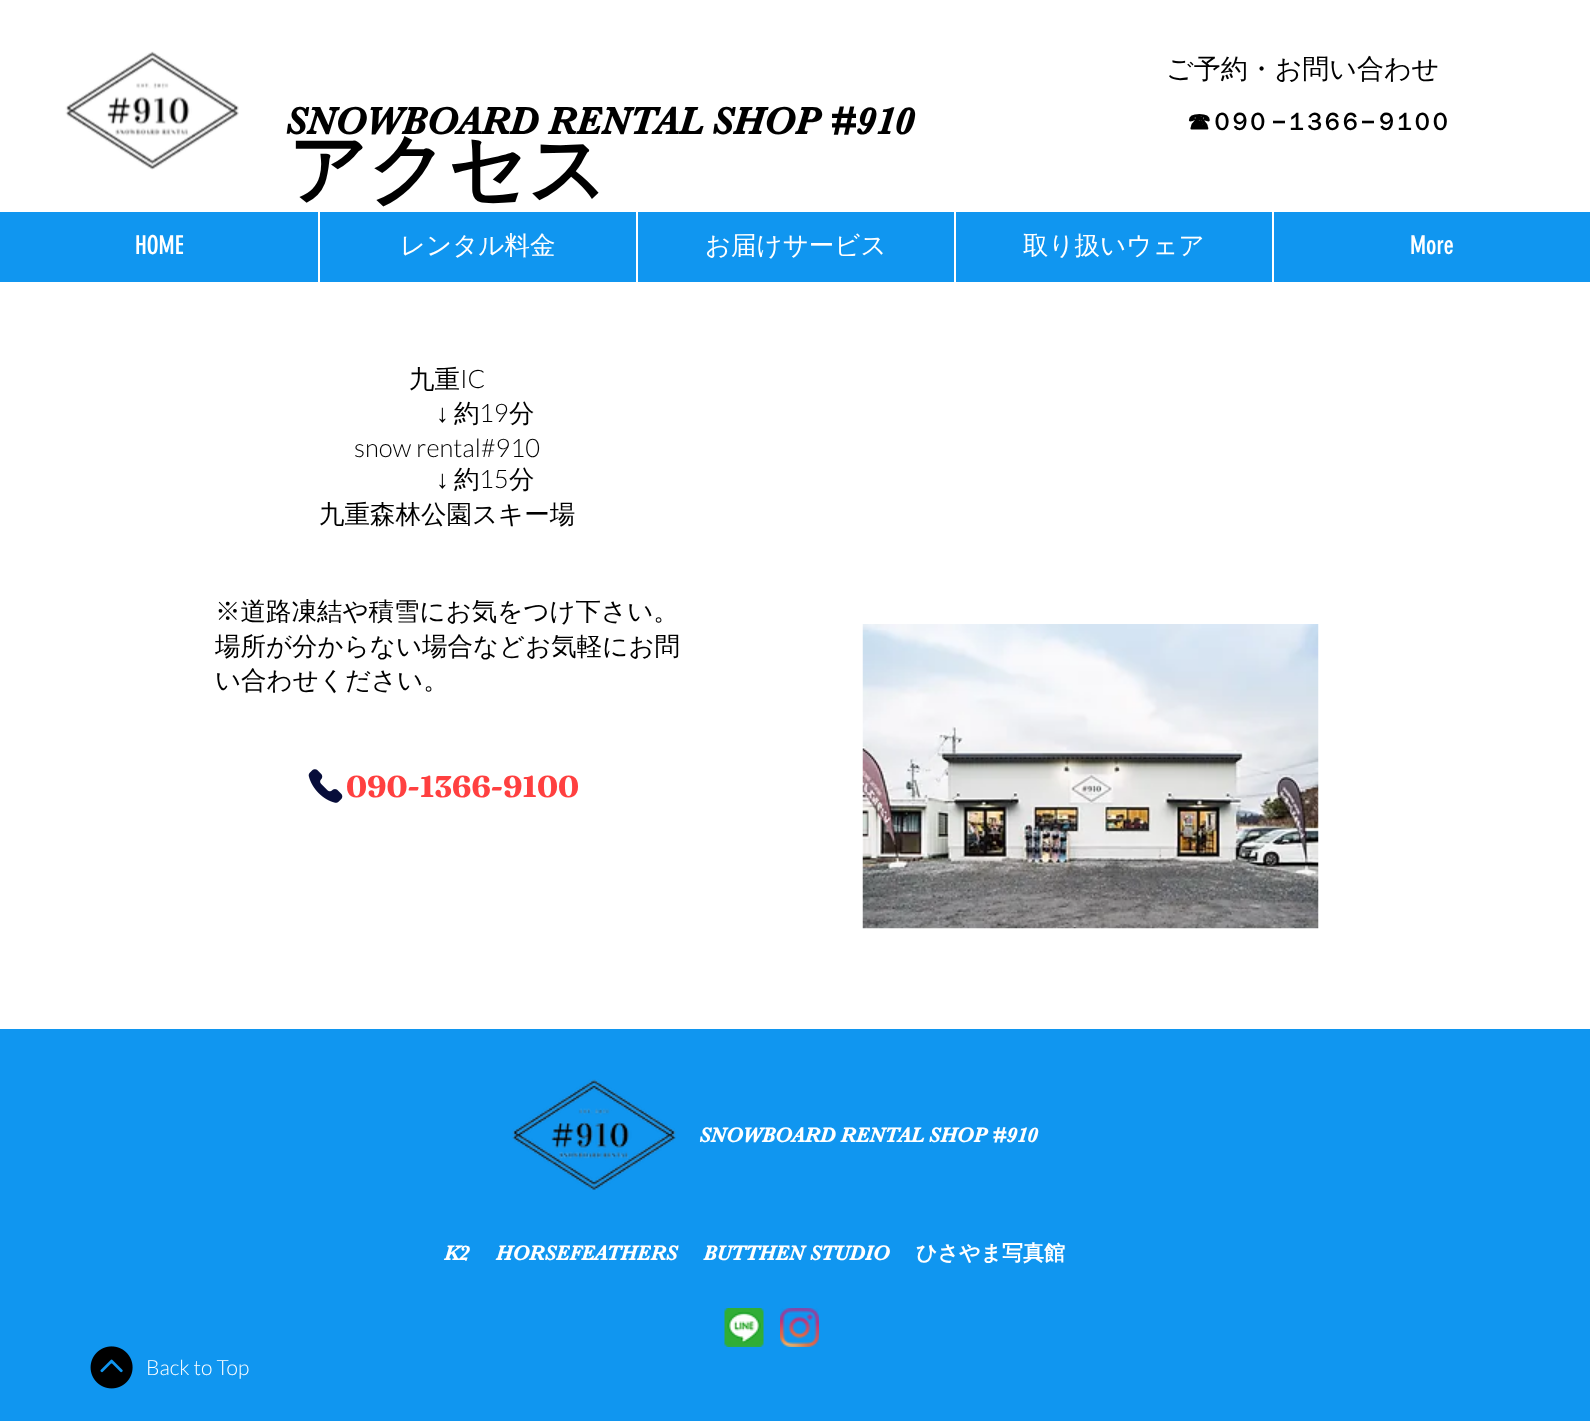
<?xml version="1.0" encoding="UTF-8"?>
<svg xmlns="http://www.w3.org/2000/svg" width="1590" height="1421">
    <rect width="100%" height="100%" fill="#FFFFFF"/>
    <image x="65" y="51" width="174" height="119" href="img_01.png"/>
    <text x="1166" y="78" font-family="WenQuanYi Zen Hei" font-size="27" font-weight="500" fill="#000000">ご予約・お問い合わせ</text>
    <text x="285" y="134" font-family="'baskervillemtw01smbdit'" font-size="39" font-weight="700" fill="#000000">SNOWBOARD RENTAL SHOP #910</text>
    <text x="1187" y="130" font-family="WenQuanYi Zen Hei" font-size="24" font-weight="700" letter-spacing="3.5" fill="#000000">☎︎090</text>
    <text x="1272" y="130" font-family="Liberation Sans" font-size="24" font-weight="700" letter-spacing="3.5" fill="#000000">−</text>
    <text x="1289" y="130" font-family="WenQuanYi Zen Hei" font-size="24" font-weight="700" letter-spacing="3.5" fill="#000000">1366</text>
    <text x="1361" y="130" font-family="Liberation Sans" font-size="24" font-weight="700" letter-spacing="3.5" fill="#000000">−</text>
    <text x="1379" y="130" font-family="WenQuanYi Zen Hei" font-size="24" font-weight="700" letter-spacing="3.5" fill="#000000">9100</text>
    <rect x="0" y="212" width="1590" height="70" fill="#1096F0"/>
    <text x="135" y="254" font-family="'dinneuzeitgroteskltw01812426'" font-size="25.5" fill="#FFFFFF">HOME</text>
    <rect x="318" y="212" width="2" height="70" fill="#FFFFFF"/>
    <text x="400" y="254" font-family="WenQuanYi Zen Hei" font-size="25.5" font-weight="500" fill="#FFFFFF">レンタル料金</text>
    <rect x="636" y="212" width="2" height="70" fill="#FFFFFF"/>
    <text x="705" y="254" font-family="WenQuanYi Zen Hei" font-size="25.5" font-weight="500" fill="#FFFFFF">お届けサービス</text>
    <rect x="954" y="212" width="2" height="70" fill="#FFFFFF"/>
    <text x="1023" y="254" font-family="WenQuanYi Zen Hei" font-size="25.5" font-weight="500" fill="#FFFFFF">取り扱いウェア</text>
    <rect x="1272" y="212" width="2" height="70" fill="#FFFFFF"/>
    <text x="1410" y="254" font-family="'dinneuzeitgroteskltw01812426'" font-size="25.5" fill="#FFFFFF">More</text>
    <text x="288" y="196" font-family="WenQuanYi Zen Hei" font-size="78" font-weight="700" fill="#000000">アクセス</text>
    <text x="409" y="388" font-family="WenQuanYi Zen Hei" font-size="25.5" font-weight="500" fill="#000000">九重</text>
    <text x="460" y="388" font-family="Lato" font-size="25.5" font-weight="300" fill="#000000">IC</text>
    <text x="436" y="422" font-family="Liberation Sans" font-size="25.5" fill="#000000">↓</text>
    <text x="454" y="422" font-family="WenQuanYi Zen Hei" font-size="25.5" font-weight="500" fill="#000000">約</text>
    <text x="479" y="422" font-family="Lato" font-size="25.5" font-weight="300" fill="#000000">19</text>
    <text x="509" y="422" font-family="WenQuanYi Zen Hei" font-size="25.5" font-weight="500" fill="#000000">分</text>
    <text x="354" y="457" font-family="Lato" font-size="25.5" font-weight="300" fill="#000000">snow rental#910</text>
    <text x="436" y="488" font-family="Liberation Sans" font-size="25.5" fill="#000000">↓</text>
    <text x="454" y="488" font-family="WenQuanYi Zen Hei" font-size="25.5" font-weight="500" fill="#000000">約</text>
    <text x="479" y="488" font-family="Lato" font-size="25.5" font-weight="300" fill="#000000">15</text>
    <text x="509" y="488" font-family="WenQuanYi Zen Hei" font-size="25.5" font-weight="500" fill="#000000">分</text>
    <text x="319" y="523" font-family="WenQuanYi Zen Hei" font-size="25.5" font-weight="500" fill="#000000">九重森林公園スキー場</text>
    <text font-family="WenQuanYi Zen Hei" font-size="25.5" font-weight="500" fill="#000000">
        <tspan x="215" y="620">※道路凍結や積雪にお気をつけ下さい。</tspan>
        <tspan x="215" y="655">場所が分からない場合などお気軽にお問</tspan>
        <tspan x="215" y="689">い合わせください。</tspan>
    </text>
    <image x="862" y="624" width="457" height="305" href="img_02.png"/>
    <image x="308" y="769" width="35" height="34" href="img_03.png"/>
    <text x="346" y="797" font-family="Fraunces" font-size="30" font-weight="700" fill="#FF4040">090-1366-9100</text>
    <rect x="0" y="1029" width="1590" height="392" fill="#1096F0"/>
    <image x="512" y="1079" width="164" height="111" href="img_04.png"/>
    <text x="699" y="1142" font-family="'baskervillemtw01smbdit'" font-size="21" font-weight="700" fill="#FFFFFF">SNOWBOARD RENTAL SHOP #910</text>
    <text x="444" y="1260" font-family="'baskervillemtw01smbdit'" font-size="21" font-weight="700" fill="#FFFFFF" xml:space="preserve">K2     HORSEFEATHERS     BUTTHEN STUDIO</text>
    <text x="916" y="1260" font-family="WenQuanYi Zen Hei" font-size="21" font-weight="700" fill="#FFFFFF">ひさやま写真館</text>
    <image x="724" y="1308" width="40" height="39" href="img_05.png"/>
    <image x="780" y="1308" width="39" height="39" href="img_06.png"/>
    <image x="90" y="1346" width="43" height="43" href="img_07.png"/>
    <text x="146" y="1375" font-family="Lato" font-size="21" font-weight="300" fill="#FFFFFF">Back to Top</text>
</svg>
